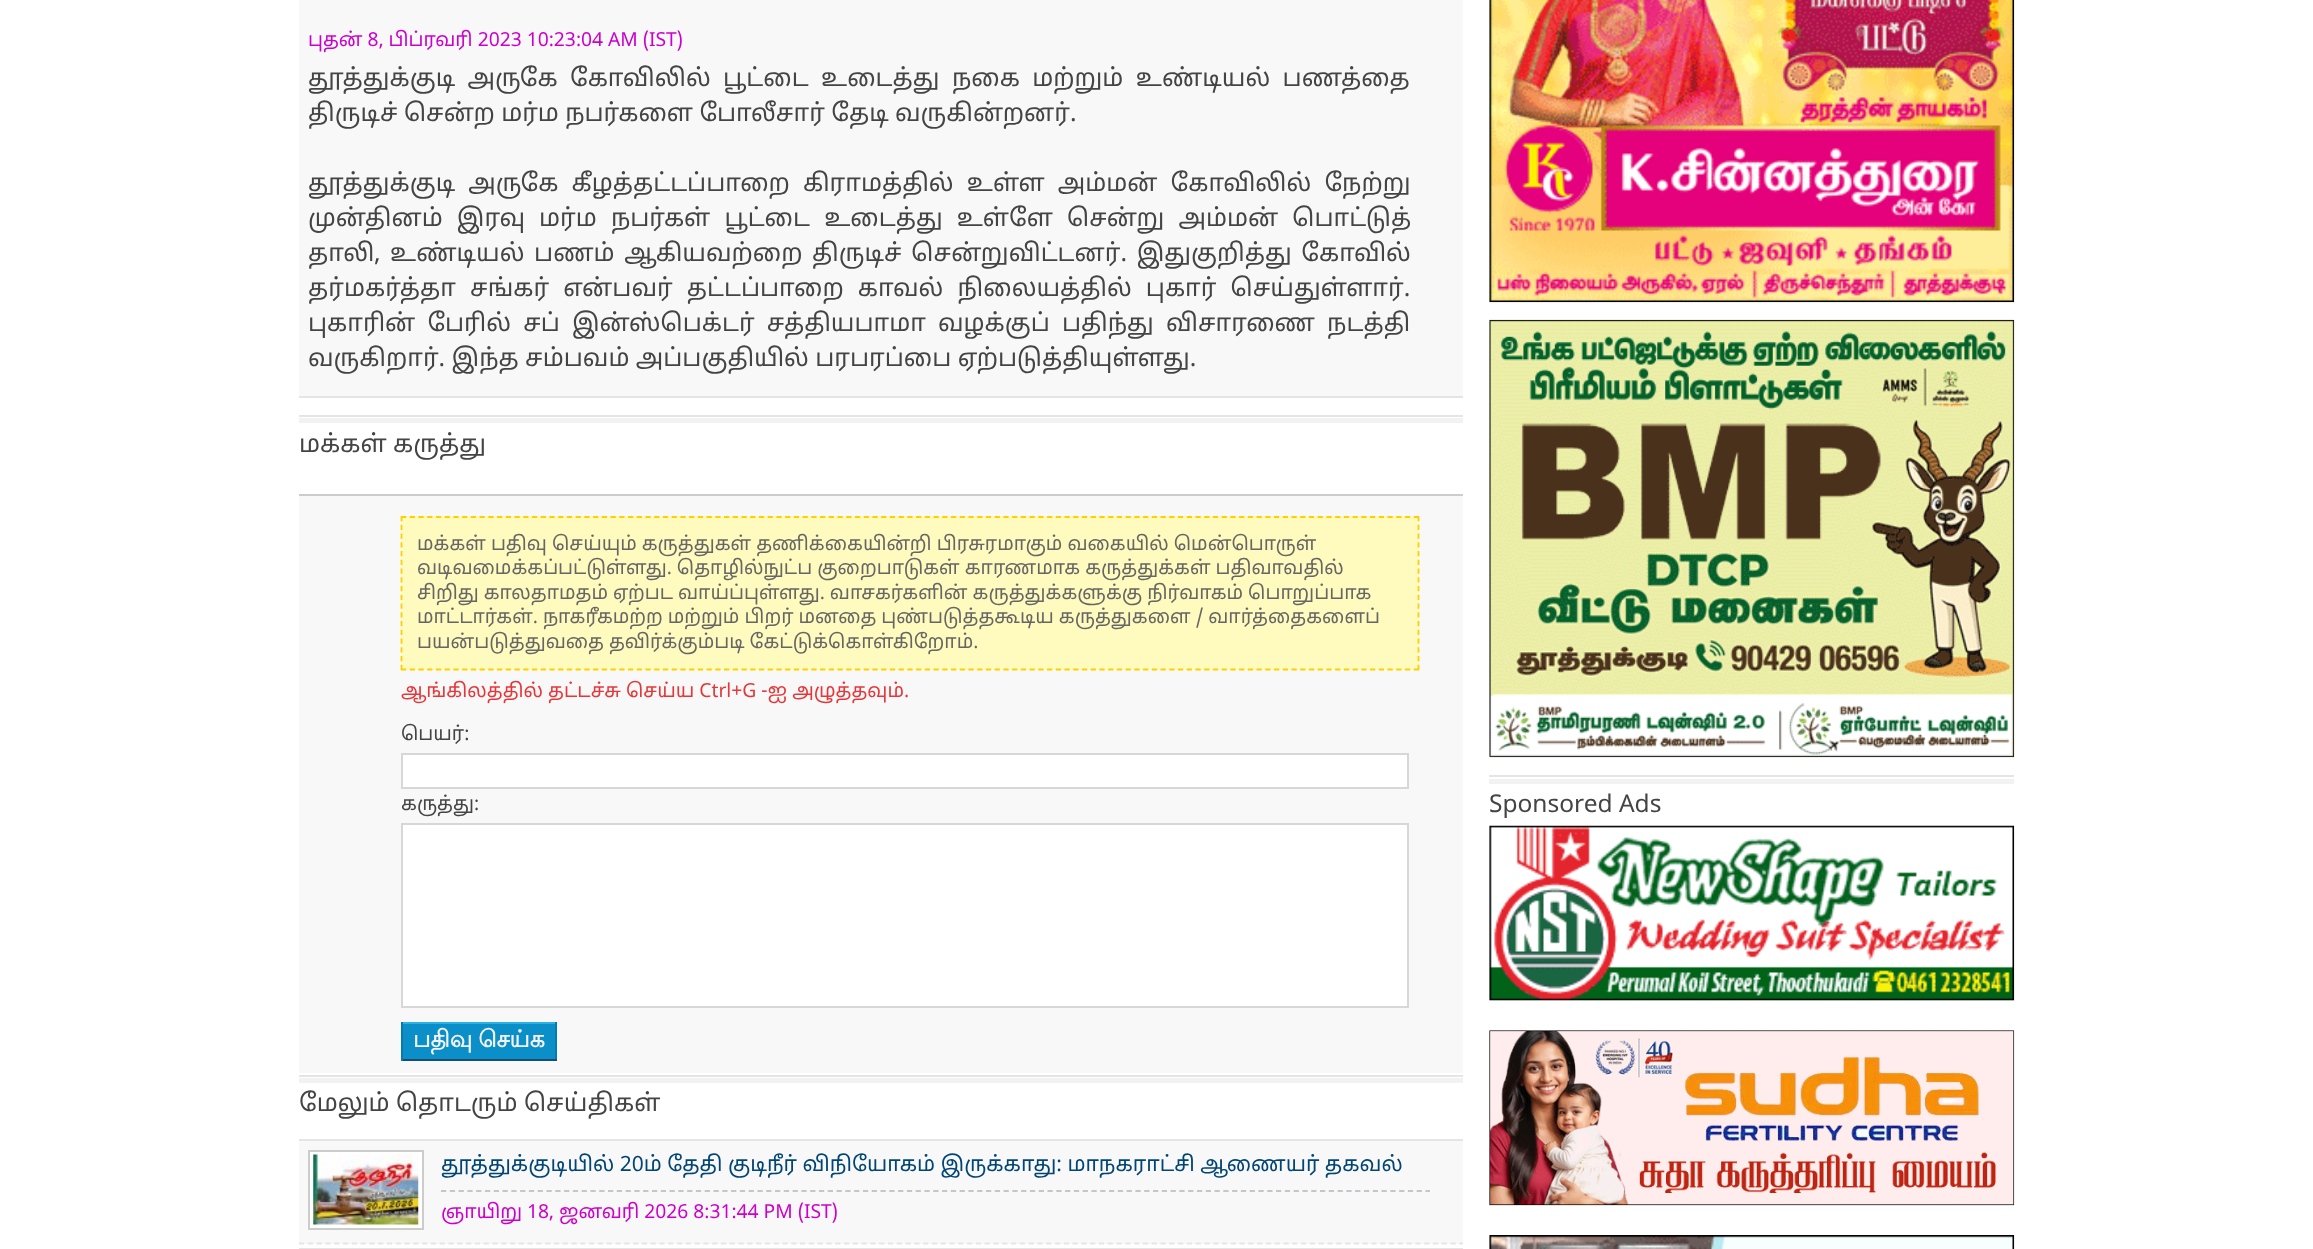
<?xml version="1.0" encoding="UTF-8"?>
<svg xmlns="http://www.w3.org/2000/svg" width="2313" height="1249">
    <defs>
        <clipPath id="clip1"><rect x="299" y="0" width="1164" height="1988"/></clipPath>
    </defs>
    <rect width="100%" height="100%" fill="#FFFFFF"/>
    <rect x="299" y="0" width="1164" height="396" fill="#F8F8F8"/>
    <rect x="299" y="396" width="1164" height="2" fill="#E5E5E5"/>
    <text x="308" y="46" font-family="Noto Sans Tamil" font-size="19.25" fill="#CC00CC">புதன் 8, பிப்ரவரி 2023 10:23:04 AM (IST)</text>
    <text x="308" y="86" word-spacing="6" font-family="Noto Sans Tamil" font-size="24.5" fill="#444444">தூத்துக்குடி அருகே கோவிலில் பூட்டை உடைத்து நகை மற்றும் உண்டியல் பணத்தை</text>
    <g clip-path="url(#clip1)">
        <text x="308" y="121" font-family="Noto Sans Tamil" font-size="24.5" fill="#444444">திருடிச் சென்ற மர்ம நபர்களை போலீசார் தேடி வருகின்றனர்.</text>
    </g>
    <text font-family="Noto Sans Tamil" font-size="24.5" fill="#444444">
        <tspan x="308" y="191" word-spacing="6.75">தூத்துக்குடி அருகே கீழத்தட்டப்பாறை கிராமத்தில் உள்ள அம்மன் கோவிலில் நேற்று</tspan>
        <tspan x="308" y="226" word-spacing="7.75">முன்தினம் இரவு மர்ம நபர்கள் பூட்டை உடைத்து உள்ளே சென்று அம்மன் பொட்டுத்</tspan>
        <tspan x="308" y="261" word-spacing="3.25">தாலி, உண்டியல் பணம் ஆகியவற்றை திருடிச் சென்றுவிட்டனர். இதுகுறித்து கோவில்</tspan>
        <tspan x="308" y="296" word-spacing="7.75">தர்மகர்த்தா சங்கர் என்பவர் தட்டப்பாறை காவல் நிலையத்தில் புகார் செய்துள்ளார்.</tspan>
        <tspan x="308" y="331" word-spacing="5.75">புகாரின் பேரில் சப் இன்ஸ்பெக்டர் சத்தியபாமா வழக்குப் பதிந்து விசாரணை நடத்தி</tspan>
        <tspan x="308" y="366">வருகிறார். இந்த சம்பவம் அப்பகுதியில் பரபரப்பை ஏற்படுத்தியுள்ளது.</tspan>
    </text>
    <rect x="299" y="415" width="1164" height="2" fill="#E5E5E5"/>
    <rect x="299" y="418" width="1164" height="5" fill="#F2F2F2"/>
    <text x="299" y="452" font-family="Noto Sans Tamil" font-size="24.5" fill="#444444">மக்கள் கருத்து</text>
    <rect x="299" y="496" width="1164" height="577" fill="#F8F8F8"/>
    <rect x="299" y="494" width="1164" height="2" fill="#CCCCCC"/>
    <rect x="401" y="516" width="1018" height="154" fill="#FFFBBE"/>
    <path d="M 401 517 H 1419" fill="none" stroke="#FFD000" stroke-width="1.8" stroke-dasharray="5.25 3.48"/>
    <path d="M 1418.5 516 V 670" fill="none" stroke="#FFD000" stroke-width="1.8" stroke-dasharray="5.25 3.5"/>
    <path d="M 401 669.5 H 1419" fill="none" stroke="#FFD000" stroke-width="1.8" stroke-dasharray="5.25 3.48"/>
    <path d="M 401.5 516 V 670" fill="none" stroke="#FFD000" stroke-width="1.8" stroke-dasharray="5.25 3.5"/>
    <text font-family="Noto Sans Tamil" font-size="19.25" fill="#666666">
        <tspan x="417" y="550">மக்கள் பதிவு செய்யும் கருத்துகள் தணிக்கையின்றி பிரசுரமாகும் வகையில் மென்பொருள்</tspan>
        <tspan x="417" y="574">வடிவமைக்கப்பட்டுள்ளது. தொழில்நுட்ப குறைபாடுகள் காரணமாக கருத்துக்கள் பதிவாவதில்</tspan>
        <tspan x="417" y="599">சிறிது காலதாமதம் ஏற்பட வாய்ப்புள்ளது. வாசகர்களின் கருத்துக்களுக்கு நிர்வாகம் பொறுப்பாக</tspan>
        <tspan x="417" y="623">மாட்டார்கள். நாகரீகமற்ற மற்றும் பிறர் மனதை புண்படுத்தகூடிய கருத்துகளை / வார்த்தைகளைப்</tspan>
        <tspan x="417" y="648">பயன்படுத்துவதை தவிர்க்கும்படி கேட்டுக்கொள்கிறோம்.</tspan>
    </text>
    <text x="401" y="697" font-family="Noto Sans Tamil" font-size="19.25" fill="#E53739">ஆங்கிலத்தில் தட்டச்சு செய்ய Ctrl+G -ஐ அழுத்தவும்.</text>
    <text x="401" y="740" font-family="Noto Sans Tamil" font-size="19.25" fill="#444444">பெயர்:</text>
    <rect x="402" y="754" width="1006" height="34" fill="#FFFFFF" stroke="#D7D7D7" stroke-width="2"/>
    <text x="401" y="810" font-family="Noto Sans Tamil" font-size="19.25" fill="#444444">கருத்து:</text>
    <rect x="402" y="824" width="1006" height="183" fill="#FFFFFF" stroke="#D7D7D7" stroke-width="2"/>
    <rect x="403" y="1024" width="152" height="35" fill="#0B8FC9"/>
    <rect x="401" y="1022" width="156" height="2" fill="#2BB2E4"/>
    <rect x="555" y="1022" width="2" height="39" fill="#087BAE"/>
    <rect x="401" y="1059" width="156" height="2" fill="#164D78"/>
    <rect x="401" y="1022" width="2" height="39" fill="#087BAE"/>
    <text x="413" y="1047" word-spacing="-1" font-family="Lohit Tamil" font-size="23.5" font-weight="700" fill="#F2F2F2">பதிவு செய்க</text>
    <rect x="299" y="1075" width="1164" height="2" fill="#E5E5E5"/>
    <rect x="299" y="1078" width="1164" height="5" fill="#F2F2F2"/>
    <text x="299" y="1111" font-family="Noto Sans Tamil" font-size="24.5" fill="#444444">மேலும் தொடரும் செய்திகள்</text>
    <rect x="299" y="1141" width="1164" height="103" fill="#F8F8F8"/>
    <rect x="299" y="1139" width="1164" height="2" fill="#E5E5E5"/>
    <path d="M 299 1243.5 H 1463" fill="none" stroke="#E5E5E5" stroke-width="1.8" stroke-dasharray="5.25 3.54"/>
    <rect x="309" y="1151" width="114" height="78" fill="#FFFFFF" stroke="#CCCCCC" stroke-width="2"/>
    <image x="313" y="1154" width="106" height="71" href="img_01.png"/>
    <path d="M 441 1191 H 1430" fill="none" stroke="#C5C6CB" stroke-width="1.8" stroke-dasharray="5.25 3.54"/>
    <text x="441" y="1171" font-family="Noto Sans Tamil" font-size="21" fill="#004574">தூத்துக்குடியில் 20ம் தேதி குடிநீர் விநியோகம் இருக்காது: மாநகராட்சி ஆணையர் தகவல்</text>
    <text x="441" y="1218" font-family="Noto Sans Tamil" font-size="19.25" fill="#CC00CC">ஞாயிறு 18, ஜனவரி 2026 8:31:44 PM (IST)</text>
    <rect x="299" y="1248" width="1164" height="1" fill="#E5E5E5"/>
    <image x="1489" y="0" width="526" height="303" href="img_02.png"/>
    <image x="1489" y="319" width="526" height="439" href="img_03.png"/>
    <rect x="1489" y="775" width="525" height="2" fill="#E5E5E5"/>
    <rect x="1489" y="779" width="525" height="5" fill="#F2F2F2"/>
    <text x="1489" y="812" font-family="Noto Sans Tamil" font-size="24.5" fill="#444444">Sponsored Ads</text>
    <rect x="1489" y="826" width="525" height="175" fill="#F2F2F2"/>
    <image x="1489" y="825" width="526" height="176" href="img_04.png"/>
    <rect x="1489" y="1031" width="525" height="175" fill="#F2F2F2"/>
    <image x="1489" y="1030" width="526" height="176" href="img_05.png"/>
    <rect x="1489" y="1236" width="1" height="13" fill="#F2F2F2"/>
    <image x="1489" y="1235" width="526" height="14" href="img_06.png"/>
</svg>
